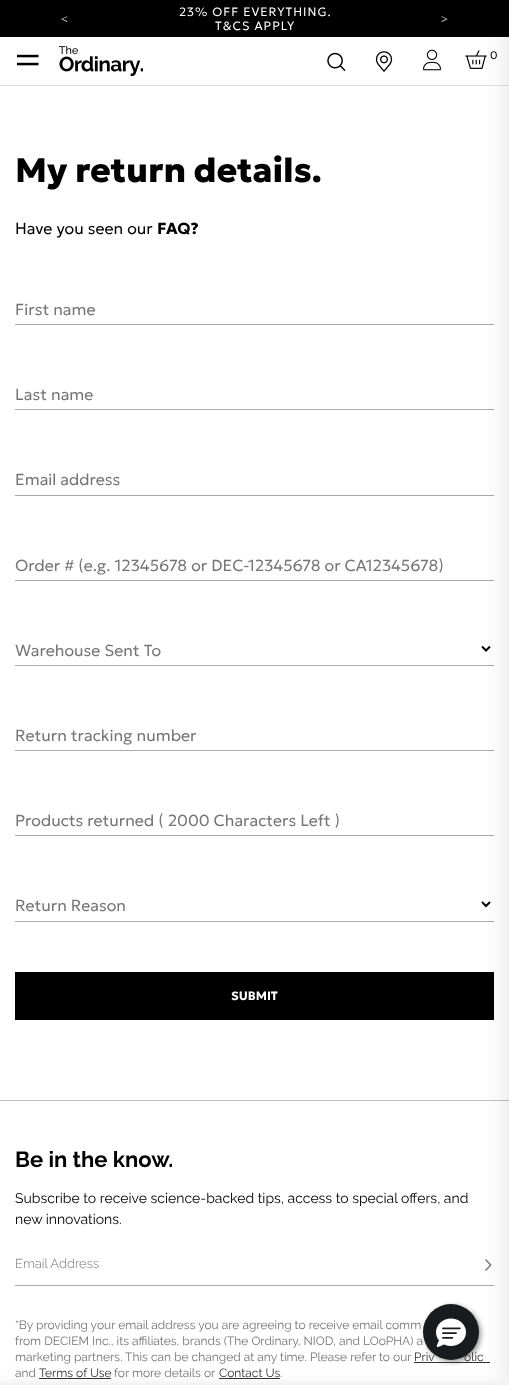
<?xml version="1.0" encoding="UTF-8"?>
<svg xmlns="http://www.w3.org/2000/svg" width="509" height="1385">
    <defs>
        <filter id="blur1" x="-50%" y="-200%" width="200%" height="500%"><feGaussianBlur stdDeviation="2.5"/></filter>
        <filter id="blur2" x="-50%" y="-200%" width="200%" height="500%"><feGaussianBlur stdDeviation="14"/></filter>
        <filter id="blur3" x="-50%" y="-200%" width="200%" height="500%"><feGaussianBlur stdDeviation="6"/></filter>
    </defs>
    <rect width="100%" height="100%" fill="#FFFFFF"/>
    <rect x="0" y="85" width="509" height="1" fill="#E1DED9"/>
    <rect x="0" y="0" width="509" height="37" fill="#000000"/>
    <image x="465" y="50" width="22" height="19" href="img_04.png"/>
    <rect x="15" y="324" width="479" height="1" fill="#AAAAAA"/>
    <rect x="15" y="409" width="479" height="1" fill="#AAAAAA"/>
    <rect x="15" y="495" width="479" height="1" fill="#AAAAAA"/>
    <rect x="15" y="580" width="479" height="1" fill="#AAAAAA"/>
    <rect x="15" y="665" width="479" height="1" fill="#AAAAAA"/>
    <path d="M 482 646.5 L 486 650.5 L 490 646.5" fill="none" stroke="#000000" stroke-width="2"/>
    <rect x="15" y="750" width="479" height="1" fill="#AAAAAA"/>
    <rect x="15" y="835" width="479" height="1" fill="#AAAAAA"/>
    <rect x="15" y="921" width="479" height="1" fill="#AAAAAA"/>
    <path d="M 482 902 L 486 906 L 490 902" fill="none" stroke="#000000" stroke-width="2"/>
    <rect x="15" y="972" width="479" height="48" fill="#000000"/>
    <rect x="0" y="1100" width="509" height="1" fill="#BFBFBF"/>
    <image x="485" y="1259" width="7" height="12" href="img_07.png"/>
    <rect x="15" y="1285" width="479" height="1" fill="#AAAAAA"/>
    <rect x="414" y="1362" width="76" height="1" fill="#333333"/>
    <text x="414" y="1361" font-family="Raleway" font-size="12" fill="#333333">Priv</text>
    <text x="464" y="1361" font-family="Raleway" font-size="12" fill="#333333">olic</text>
    <rect x="425" y="1306" width="56" height="56" rx="28" fill="#2D2D2D" fill-opacity="0.5" filter="url(#blur1)"/>
    <circle cx="451" cy="1332" r="28" fill="#1A1B1E"/>
    <rect x="509" y="8" width="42" height="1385" fill="#000000" fill-opacity="0.12" filter="url(#blur2)"/>
    <text x="61" y="23" font-family="Liberation Serif" font-size="12" fill="#FFFFFF">&lt;</text>
    <text x="179" y="16" font-family="Geologica" font-size="12" font-weight="300" letter-spacing="1" fill="#FFFFFF">23% OFF EVERYTHING.</text>
    <text x="215" y="30" font-family="Geologica" font-size="12" font-weight="300" letter-spacing="1" fill="#FFFFFF">T&amp;CS APPLY</text>
    <text x="441" y="23" font-family="Liberation Serif" font-size="12" fill="#FFFFFF">&gt;</text>
    <image x="327" y="52" width="19" height="19" href="img_01.png"/>
    <image x="375" y="51" width="18" height="21" href="img_02.png"/>
    <image x="423" y="49" width="18" height="22" href="img_03.png"/>
    <text x="490" y="59" font-family="Geologica" font-size="11" font-weight="300" fill="#000000">0</text>
    <rect x="39" y="1378" width="72" height="1" fill="#333333"/>
    <rect x="219" y="1378" width="61" height="1" fill="#333333"/>
    <rect x="-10" y="1385" width="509" height="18" fill="#000000" fill-opacity="0.12" filter="url(#blur3)"/>
    <image x="17" y="54" width="22" height="12" href="img_05.png"/>
    <image x="59" y="46" width="84" height="30" href="img_06.png"/>
    <text x="15" y="182" font-family="Geologica" font-size="34" font-weight="800" fill="#000000">My return details.</text>
    <text x="15" y="234" font-family="Geologica" font-size="16" font-weight="300" fill="#000000">Have you seen our</text>
    <text x="157" y="234" font-family="Geologica" font-size="16" font-weight="700" fill="#000000">FAQ?</text>
    <text x="15" y="315" font-family="Geologica" font-size="16" font-weight="300" fill="#757575">First name</text>
    <text x="15" y="400" font-family="Geologica" font-size="16" font-weight="300" fill="#757575">Last name</text>
    <text x="15" y="485" font-family="Geologica" font-size="16" font-weight="300" fill="#757575">Email address</text>
    <text x="15" y="571" font-family="Geologica" font-size="16" font-weight="300" fill="#757575">Order # (e.g. 12345678 or DEC-12345678 or CA12345678)</text>
    <text x="15" y="656" font-family="Geologica" font-size="16" font-weight="300" fill="#757575">Warehouse Sent To</text>
    <text x="15" y="741" font-family="Geologica" font-size="16" font-weight="300" fill="#757575">Return tracking number</text>
    <text x="15" y="826" font-family="Geologica" font-size="16" font-weight="300" fill="#757575">Products returned ( 2000 Characters Left )</text>
    <text x="15" y="911" font-family="Geologica" font-size="16" font-weight="300" fill="#757575">Return Reason</text>
    <text x="231" y="1000" font-family="Geologica" font-size="12" font-weight="700" fill="#FFFFFF">SUBMIT</text>
    <text x="15" y="1167" font-family="Raleway" font-size="22" font-weight="700" fill="#000000">Be in the know.</text>
    <text font-family="Raleway" font-size="14" fill="#000000">
        <tspan x="15" y="1203">Subscribe to receive science-backed tips, access to special offers, and</tspan>
        <tspan x="15" y="1224">new innovations.</tspan>
    </text>
    <text x="15" y="1268" font-family="Raleway" font-size="13" font-weight="300" fill="#757575">Email Address</text>
    <text font-family="Raleway" font-size="12" fill="#757575">
        <tspan x="15" y="1329">*By providing your email address you are agreeing to receive email comm</tspan>
        <tspan x="15" y="1345">from DECIEM Inc., its affiliates, brands (The Ordinary, NIOD, and LOoPHA) a</tspan>
        <tspan x="15" y="1361">marketing partners. This can be changed at any time. Please refer to our</tspan>
        <tspan x="15" y="1377">and</tspan>
    </text>
    <text x="39" y="1377" font-family="Raleway" font-size="12" fill="#333333">Terms of Use</text>
    <text x="114" y="1377" font-family="Raleway" font-size="12" fill="#757575">for more details or</text>
    <text x="219" y="1377" font-family="Raleway" font-size="12" fill="#333333">Contact Us</text>
    <text x="280" y="1377" font-family="Raleway" font-size="12" fill="#757575">.</text>
    <image x="436" y="1318" width="30" height="29" href="img_08.png"/>
</svg>
